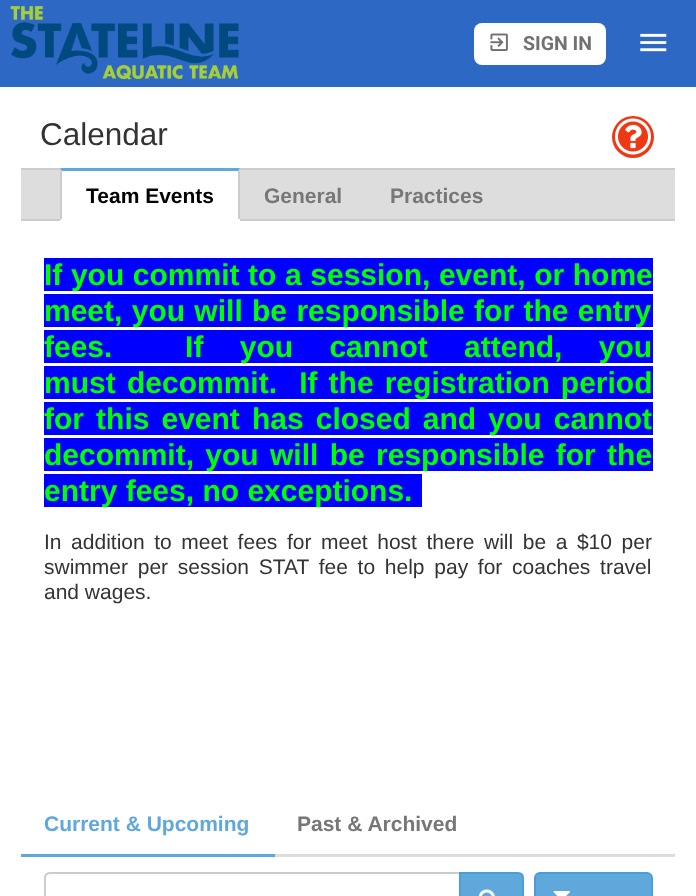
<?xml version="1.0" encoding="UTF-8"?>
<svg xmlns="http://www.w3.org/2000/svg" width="696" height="896">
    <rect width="100%" height="100%" fill="#FFFFFF"/>
    <rect x="0" y="0" width="696" height="87" fill="#2D68C4"/>
    <image x="10" y="6" width="229" height="74" href="img_01.png"/>
    <rect x="474" y="23" width="132" height="42" rx="8" fill="#FFFFFF"/>
    <image x="490" y="33" width="18" height="18" href="img_02.png"/>
    <text x="523" y="50" font-family="Roboto" font-size="19.5" font-weight="700" fill="#717171">SIGN IN</text>
    <image x="640" y="33" width="27" height="19" href="img_03.png"/>
    <text x="40" y="145" font-family="Liberation Sans" font-size="31.5" fill="#333333">Calendar</text>
    <circle cx="633" cy="137" r="21" fill="#F03814"/>
    <image x="615" y="118" width="36" height="37" href="img_04.png"/>
    <rect x="21" y="170" width="654" height="49" fill="#DDDDDD"/>
    <rect x="21" y="168" width="654" height="2" fill="#CCCCCC"/>
    <rect x="21" y="219" width="654" height="2" fill="#CCCCCC"/>
    <rect x="62" y="171" width="176" height="48" fill="#FFFFFF"/>
    <path d="M 60 168 H 240 L 238 171 H 62 Z" fill="#5FA8DC"/>
    <path d="M 240 168 V 220 L 238 219 V 171 Z" fill="#CCCCCC"/>
    <rect x="60" y="219" width="180" height="2" fill="#FFFFFF"/>
    <path d="M 60 220 V 168 L 62 171 V 219 Z" fill="#CCCCCC"/>
    <text x="86" y="203" font-family="Liberation Sans" font-size="21" font-weight="700" fill="#000000">Team Events</text>
    <text x="264" y="203" font-family="Liberation Sans" font-size="21" font-weight="700" fill="#777777">General</text>
    <text x="390" y="203" font-family="Liberation Sans" font-size="21" font-weight="700" fill="#777777">Practices</text>
    <rect x="44" y="258" width="609" height="33" fill="#0000FF"/>
    <text x="44" y="285" word-spacing="0.25" font-family="Liberation Sans" font-size="30" font-weight="700" fill="#00FF00">If you commit to a session, event, or home</text>
    <rect x="44" y="294" width="609" height="33" fill="#0000FF"/>
    <text x="44" y="321" word-spacing="1" font-family="Liberation Sans" font-size="30" font-weight="700" fill="#00FF00">meet, you will be responsible for the entry</text>
    <rect x="44" y="330" width="609" height="33" fill="#0000FF"/>
    <text x="44" y="357" word-spacing="28" font-family="Liberation Sans" font-size="30" font-weight="700" fill="#00FF00" xml:space="preserve">fees.  If you cannot attend, you</text>
    <rect x="44" y="366" width="609" height="33" fill="#0000FF"/>
    <text x="44" y="393" font-family="Liberation Sans" font-size="30" font-weight="700" fill="#00FF00">must</text>
    <text x="127" y="393" word-spacing="2.75" font-family="Liberation Sans" font-size="30" font-weight="700" fill="#00FF00" xml:space="preserve">decommit.  If the registration period</text>
    <rect x="44" y="402" width="609" height="33" fill="#0000FF"/>
    <text x="44" y="429" word-spacing="3.75" font-family="Liberation Sans" font-size="30" font-weight="700" fill="#00FF00">for this event has closed and you cannot</text>
    <rect x="44" y="438" width="609" height="33" fill="#0000FF"/>
    <text x="44" y="465" word-spacing="3" font-family="Liberation Sans" font-size="30" font-weight="700" fill="#00FF00">decommit, you will be responsible for the</text>
    <rect x="44" y="474" width="378" height="33" fill="#0000FF"/>
    <text x="44" y="501" font-family="Liberation Sans" font-size="30" font-weight="700" fill="#00FF00">entry fees, no exceptions.</text>
    <text font-family="Liberation Sans" font-size="21" fill="#333333">
        <tspan x="44" y="549" word-spacing="3.75">In addition to meet fees for meet host there will be a $10 per</tspan>
        <tspan x="44" y="574" word-spacing="3.9">swimmer per session STAT fee to help pay for coaches travel</tspan>
        <tspan x="44" y="599">and wages.</tspan>
    </text>
    <rect x="275" y="854" width="400" height="3" fill="#DDDDDD"/>
    <rect x="21" y="854" width="254" height="3" fill="#5FA8DC"/>
    <text x="44" y="831" font-family="Liberation Sans" font-size="21" font-weight="700" fill="#5FA8DC">Current &amp; Upcoming</text>
    <text x="297" y="831" font-family="Liberation Sans" font-size="21" font-weight="700" fill="#777777">Past &amp; Archived</text>
    <path d="M 50 873 H 460 V 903 H 50 C 47 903 45 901 45 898 V 878 C 45 875 47 873 50 873 Z" fill="none" stroke="#CCCCCC" stroke-width="2"/>
    <path d="M 460 873 H 518 C 521 873 523 875 523 878 V 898 C 523 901 521 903 518 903 H 460 Z" fill="#5FA8DC" stroke="#4A9DD7" stroke-width="2"/>
    <image x="478" y="889" width="17" height="7" href="img_05.png"/>
    <rect x="535" y="873" width="117" height="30" rx="5" fill="#5FA8DC" stroke="#4A9DD7" stroke-width="2"/>
    <image x="553" y="891" width="17" height="5" href="img_06.png"/>
</svg>
